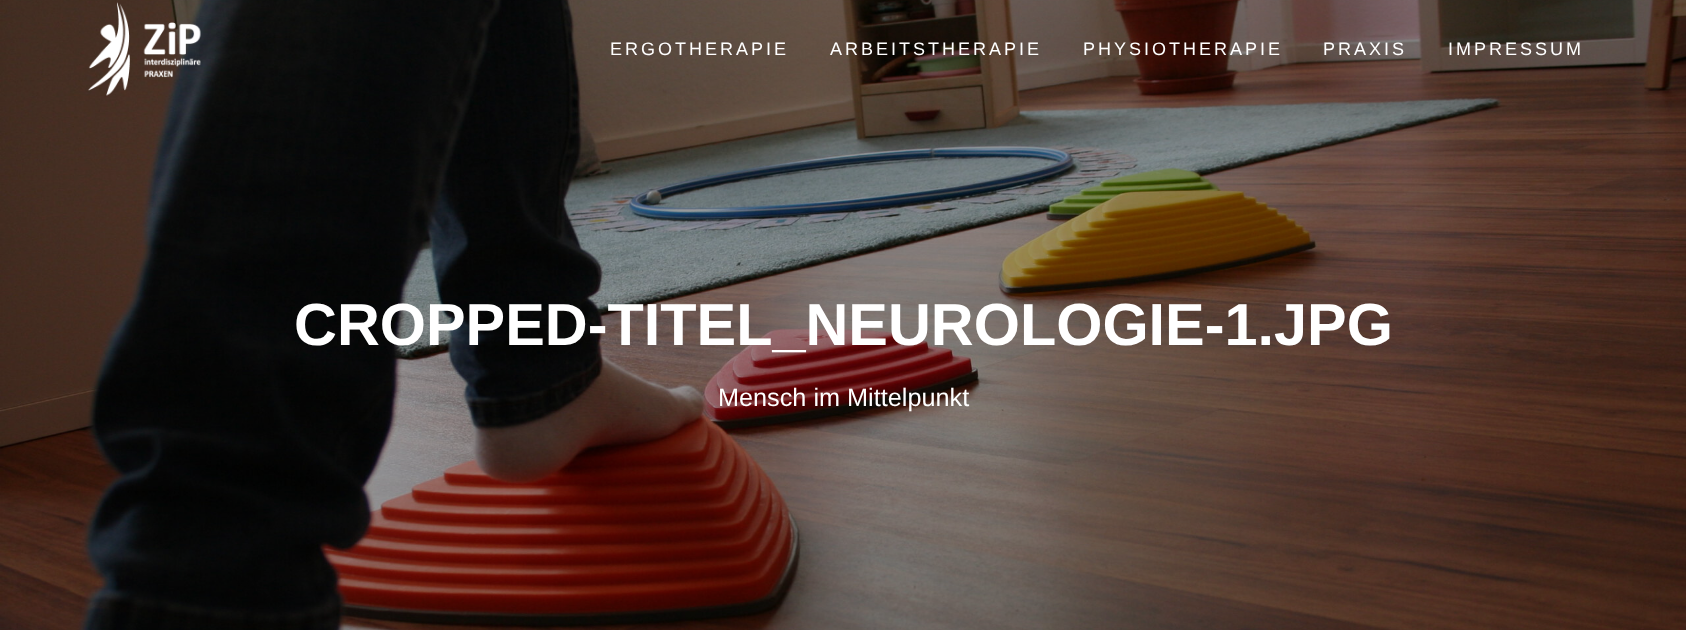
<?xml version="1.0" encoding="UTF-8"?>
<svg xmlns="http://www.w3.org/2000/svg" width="1686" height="630">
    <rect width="100%" height="100%" fill="#FFFFFF"/>
    <image x="0" y="0" width="1686" height="630" href="img_02.png"/>
    <image x="88" y="2" width="113" height="94" href="img_01.png"/>
    <text x="610" y="55" font-family="Liberation Sans" font-size="18" letter-spacing="3" fill="#FFFFFF">ERGOTHERAPIE</text>
    <text x="830" y="55" font-family="Liberation Sans" font-size="18" letter-spacing="3" fill="#FFFFFF">ARBEITSTHERAPIE</text>
    <text x="1083" y="55" font-family="Liberation Sans" font-size="18" letter-spacing="3" fill="#FFFFFF">PHYSIOTHERAPIE</text>
    <text x="1323" y="55" font-family="Liberation Sans" font-size="18" letter-spacing="3" fill="#FFFFFF">PRAXIS</text>
    <text x="1448" y="55" font-family="Liberation Sans" font-size="18" letter-spacing="3" fill="#FFFFFF">IMPRESSUM</text>
    <text x="294" y="345" font-family="Liberation Sans" font-size="59.4" font-weight="700" fill="#FFFFFF">CROPPED-TITEL_NEUROLOGIE-1.JPG</text>
    <text x="718" y="406" font-family="Liberation Sans" font-size="25.25" fill="#FFFFFF">Mensch im Mittelpunkt</text>
</svg>
